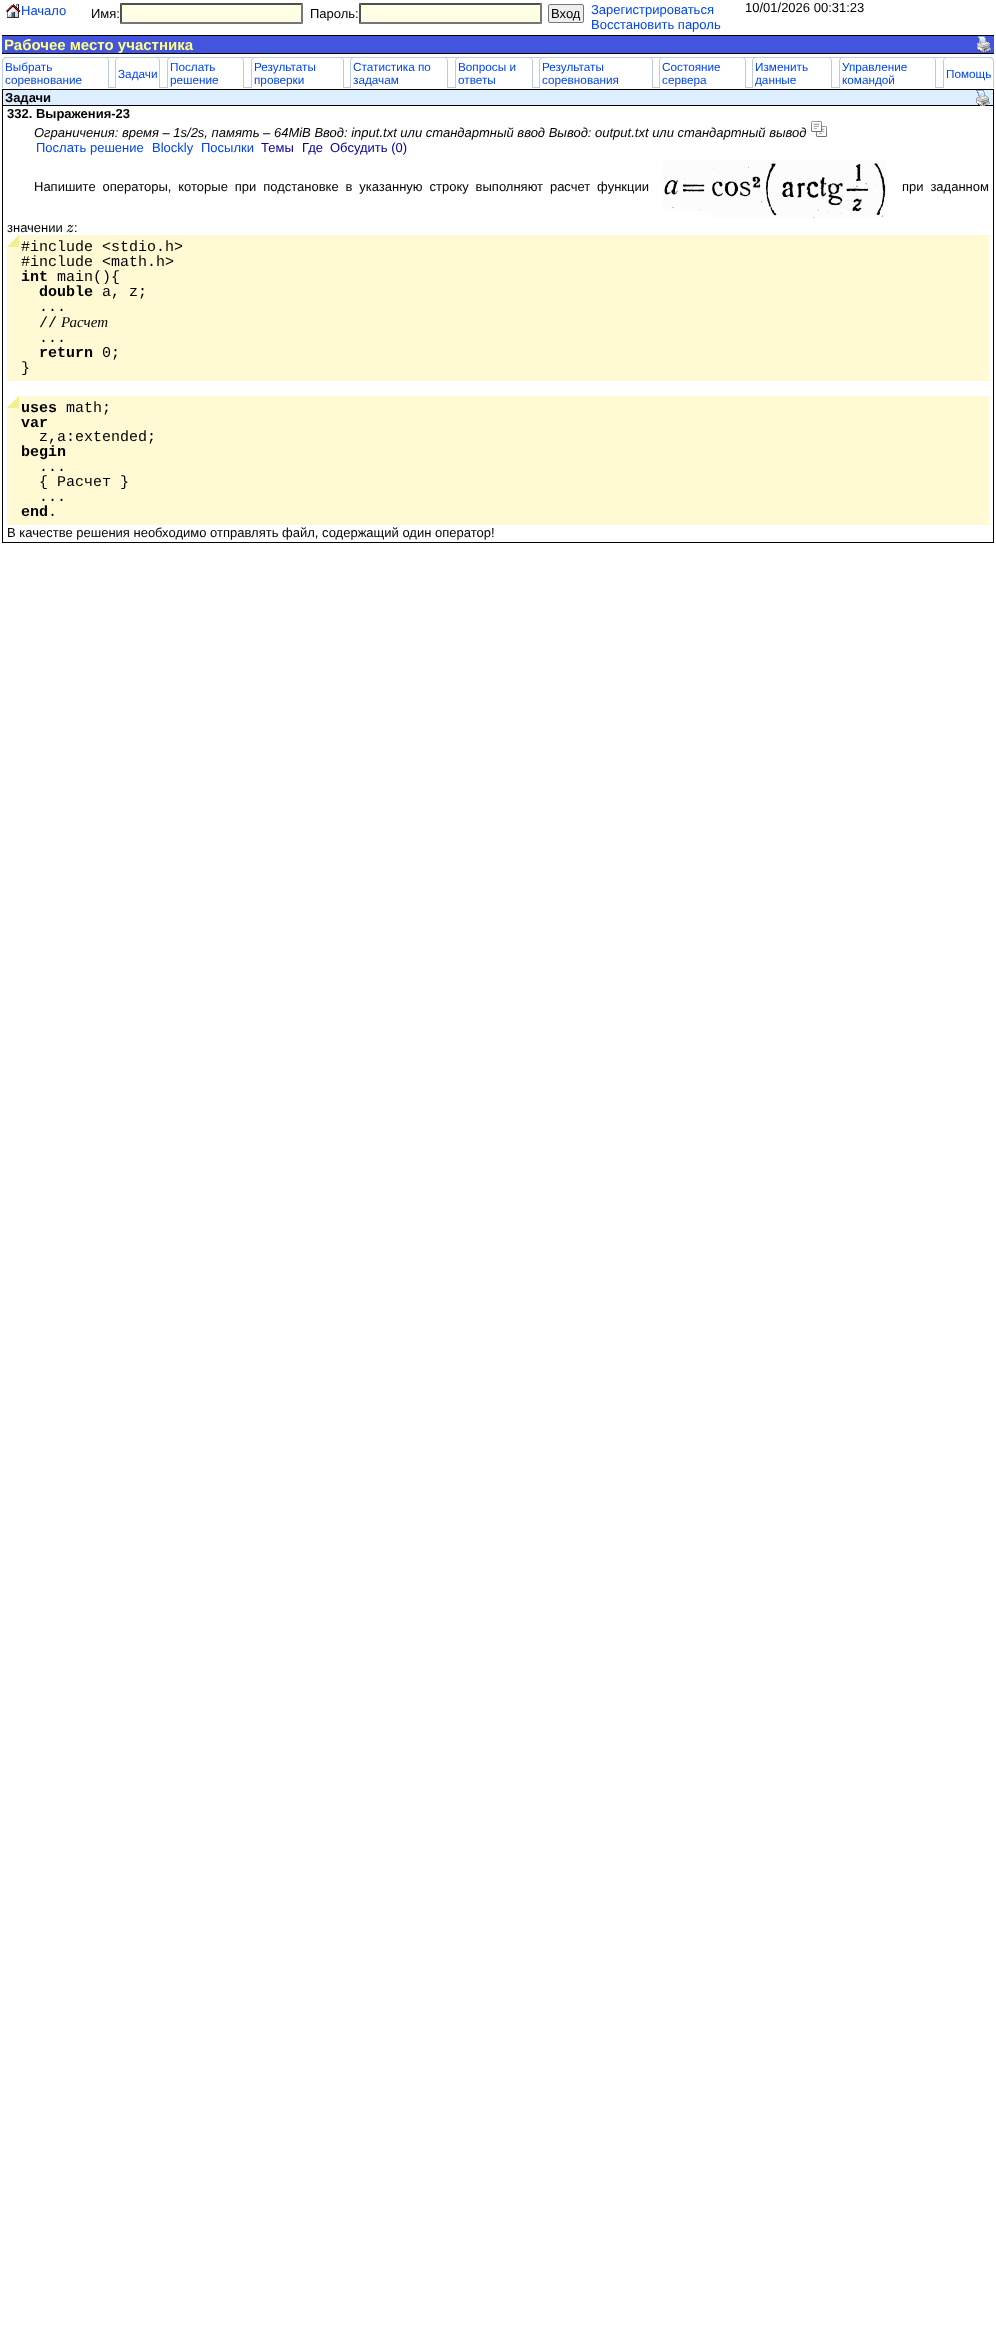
<?xml version="1.0" encoding="UTF-8"?>
<svg xmlns="http://www.w3.org/2000/svg" width="996" height="2345">
    <rect width="100%" height="100%" fill="#FFFFFF"/>
    <image x="6" y="4" width="14" height="14" href="img_01.png"/>
    <text x="21" y="15" font-family="Liberation Sans" font-size="13" fill="#0044EE">Начало</text>
    <text x="91" y="18" font-family="Liberation Sans" font-size="13" fill="#000000">Имя:</text>
    <rect x="120" y="3" width="183" height="21" fill="#FFFFE6"/>
    <path d="M 120 3 H 303 L 301 5 H 122 Z" fill="#4F4F4F"/>
    <path d="M 303 3 V 24 L 301 22 V 5 Z" fill="#767676"/>
    <path d="M 303 24 H 120 L 122 22 H 301 Z" fill="#767676"/>
    <path d="M 120 24 V 3 L 122 5 V 22 Z" fill="#4F4F4F"/>
    <text x="310" y="18" font-family="Liberation Sans" font-size="13" fill="#000000">Пароль:</text>
    <rect x="359" y="3" width="183" height="21" fill="#FFFFE6"/>
    <path d="M 359 3 H 542 L 540 5 H 361 Z" fill="#4F4F4F"/>
    <path d="M 542 3 V 24 L 540 22 V 5 Z" fill="#767676"/>
    <path d="M 542 24 H 359 L 361 22 H 540 Z" fill="#767676"/>
    <path d="M 359 24 V 3 L 361 5 V 22 Z" fill="#4F4F4F"/>
    <rect x="548.5" y="4.5" width="35" height="18" rx="1.5" fill="#EFEFEF" stroke="#767676"/>
    <text x="551" y="18" font-family="Liberation Sans" font-size="13" fill="#000000">Вход</text>
    <text font-family="Liberation Sans" font-size="13" fill="#0044EE">
        <tspan x="591" y="14">Зарегистрироваться</tspan>
        <tspan x="591" y="29">Восстановить пароль</tspan>
    </text>
    <text x="745" y="12" font-family="Liberation Sans" font-size="13" fill="#000000">10/01/2026 00:31:23</text>
    <rect x="2" y="36" width="992" height="17" fill="#4455DD"/>
    <rect x="2" y="35" width="992" height="1" fill="#000000"/>
    <rect x="2" y="53" width="992" height="1" fill="#000000"/>
    <text x="4" y="50" font-family="Liberation Sans" font-size="15" font-weight="700" fill="#FFFF88">Рабочее место участника</text>
    <image x="977" y="36" width="14" height="16" href="img_02.png"/>
    <path d="M 6 57 H 990 C 992 57 994 59 994 61 V 88 H 2 V 61 C 2 59 4 57 6 57 Z M 6 58 H 990 C 992 58 993 59 993 61 V 88 H 3 V 61 C 3 59 4 58 6 58 Z" fill="#BBCCDD" fill-rule="evenodd"/>
    <path d="M 6 57 H 105 C 107 57 109 59 109 61 V 88 H 2 V 61 C 2 59 4 57 6 57 Z M 6 58 H 105 C 107 58 108 59 108 61 V 88 H 3 V 61 C 3 59 4 58 6 58 Z" fill="#BBCCDD" fill-rule="evenodd"/>
    <text font-family="Liberation Sans" font-size="11.75" fill="#0044EE">
        <tspan x="5" y="71">Выбрать</tspan>
        <tspan x="5" y="84">соревнование</tspan>
    </text>
    <path d="M 119 57 H 156 C 158 57 160 59 160 61 V 88 H 115 V 61 C 115 59 117 57 119 57 Z M 119 58 H 156 C 158 58 159 59 159 61 V 88 H 116 V 61 C 116 59 117 58 119 58 Z" fill="#BBCCDD" fill-rule="evenodd"/>
    <text x="118" y="78" font-family="Liberation Sans" font-size="11.75" fill="#0044EE">Задачи</text>
    <path d="M 171 57 H 240 C 242 57 244 59 244 61 V 88 H 167 V 61 C 167 59 169 57 171 57 Z M 171 58 H 240 C 242 58 243 59 243 61 V 88 H 168 V 61 C 168 59 169 58 171 58 Z" fill="#BBCCDD" fill-rule="evenodd"/>
    <text font-family="Liberation Sans" font-size="11.75" fill="#0044EE">
        <tspan x="170" y="71">Послать</tspan>
        <tspan x="170" y="84">решение</tspan>
    </text>
    <path d="M 255 57 H 340 C 342 57 344 59 344 61 V 88 H 251 V 61 C 251 59 253 57 255 57 Z M 255 58 H 340 C 342 58 343 59 343 61 V 88 H 252 V 61 C 252 59 253 58 255 58 Z" fill="#BBCCDD" fill-rule="evenodd"/>
    <text font-family="Liberation Sans" font-size="11.75" fill="#0044EE">
        <tspan x="254" y="71">Результаты</tspan>
        <tspan x="254" y="84">проверки</tspan>
    </text>
    <path d="M 354 57 H 444 C 446 57 448 59 448 61 V 88 H 350 V 61 C 350 59 352 57 354 57 Z M 354 58 H 444 C 446 58 447 59 447 61 V 88 H 351 V 61 C 351 59 352 58 354 58 Z" fill="#BBCCDD" fill-rule="evenodd"/>
    <text font-family="Liberation Sans" font-size="11.75" fill="#0044EE">
        <tspan x="353" y="71">Статистика по</tspan>
        <tspan x="353" y="84">задачам</tspan>
    </text>
    <path d="M 459 57 H 529 C 531 57 533 59 533 61 V 88 H 455 V 61 C 455 59 457 57 459 57 Z M 459 58 H 529 C 531 58 532 59 532 61 V 88 H 456 V 61 C 456 59 457 58 459 58 Z" fill="#BBCCDD" fill-rule="evenodd"/>
    <text font-family="Liberation Sans" font-size="11.75" fill="#0044EE">
        <tspan x="458" y="71">Вопросы и</tspan>
        <tspan x="458" y="84">ответы</tspan>
    </text>
    <path d="M 543 57 H 649 C 651 57 653 59 653 61 V 88 H 539 V 61 C 539 59 541 57 543 57 Z M 543 58 H 649 C 651 58 652 59 652 61 V 88 H 540 V 61 C 540 59 541 58 543 58 Z" fill="#BBCCDD" fill-rule="evenodd"/>
    <text font-family="Liberation Sans" font-size="11.75" fill="#0044EE">
        <tspan x="542" y="71">Результаты</tspan>
        <tspan x="542" y="84">соревнования</tspan>
    </text>
    <path d="M 663 57 H 742 C 744 57 746 59 746 61 V 88 H 659 V 61 C 659 59 661 57 663 57 Z M 663 58 H 742 C 744 58 745 59 745 61 V 88 H 660 V 61 C 660 59 661 58 663 58 Z" fill="#BBCCDD" fill-rule="evenodd"/>
    <text font-family="Liberation Sans" font-size="11.75" fill="#0044EE">
        <tspan x="662" y="71">Состояние</tspan>
        <tspan x="662" y="84">сервера</tspan>
    </text>
    <path d="M 756 57 H 828 C 830 57 832 59 832 61 V 88 H 752 V 61 C 752 59 754 57 756 57 Z M 756 58 H 828 C 830 58 831 59 831 61 V 88 H 753 V 61 C 753 59 754 58 756 58 Z" fill="#BBCCDD" fill-rule="evenodd"/>
    <text font-family="Liberation Sans" font-size="11.75" fill="#0044EE">
        <tspan x="755" y="71">Изменить</tspan>
        <tspan x="755" y="84">данные</tspan>
    </text>
    <path d="M 843 57 H 932 C 934 57 936 59 936 61 V 88 H 839 V 61 C 839 59 841 57 843 57 Z M 843 58 H 932 C 934 58 935 59 935 61 V 88 H 840 V 61 C 840 59 841 58 843 58 Z" fill="#BBCCDD" fill-rule="evenodd"/>
    <text font-family="Liberation Sans" font-size="11.75" fill="#0044EE">
        <tspan x="842" y="71">Управление</tspan>
        <tspan x="842" y="84">командой</tspan>
    </text>
    <path d="M 947 57 H 990 C 992 57 994 59 994 61 V 88 H 943 V 61 C 943 59 945 57 947 57 Z M 947 58 H 990 C 992 58 993 59 993 61 V 88 H 944 V 61 C 944 59 945 58 947 58 Z" fill="#BBCCDD" fill-rule="evenodd"/>
    <text x="946" y="78" font-family="Liberation Sans" font-size="11.75" fill="#0044EE">Помощь</text>
    <rect x="109" y="87" width="6" height="1" fill="#BBCCDD"/>
    <rect x="160" y="87" width="7" height="1" fill="#BBCCDD"/>
    <rect x="244" y="87" width="7" height="1" fill="#BBCCDD"/>
    <rect x="344" y="87" width="6" height="1" fill="#BBCCDD"/>
    <rect x="448" y="87" width="7" height="1" fill="#BBCCDD"/>
    <rect x="533" y="87" width="6" height="1" fill="#BBCCDD"/>
    <rect x="653" y="87" width="6" height="1" fill="#BBCCDD"/>
    <rect x="746" y="87" width="6" height="1" fill="#BBCCDD"/>
    <rect x="832" y="87" width="7" height="1" fill="#BBCCDD"/>
    <rect x="936" y="87" width="7" height="1" fill="#BBCCDD"/>
    <rect x="2.5" y="89.5" width="991" height="453" fill="none" stroke="#000000"/>
    <rect x="3" y="90" width="990" height="15" fill="#DDEEFF"/>
    <rect x="3" y="105" width="990" height="1" fill="#000000"/>
    <text x="5" y="102" font-family="Liberation Sans" font-size="13" font-weight="700" fill="#000000">Задачи</text>
    <image x="976" y="90" width="14" height="16" href="img_03.png"/>
    <text x="7" y="118" font-family="Liberation Sans" font-size="13" font-weight="700" fill="#000000">332. Выражения-23</text>
    <text x="34" y="137" font-family="Liberation Sans" font-size="13" font-style="italic" fill="#000000">Ограничения: время – 1s/2s, память – 64MiB Ввод: input.txt или стандартный ввод Вывод: output.txt или стандартный вывод</text>
    <image x="811" y="121" width="16" height="16" href="img_04.png"/>
    <text x="36" y="152" font-family="Liberation Sans" font-size="13" fill="#0044EE">Послать решение</text>
    <text x="152" y="152" font-family="Liberation Sans" font-size="13" fill="#0044EE">Blockly</text>
    <text x="201" y="152" font-family="Liberation Sans" font-size="13" fill="#0044EE">Посылки</text>
    <text x="261" y="152" font-family="Liberation Sans" font-size="13" fill="#000099">Темы</text>
    <text x="302" y="152" font-family="Liberation Sans" font-size="13" fill="#000099">Где</text>
    <text x="330" y="152" font-family="Liberation Sans" font-size="13" fill="#000099">Обсудить (0)</text>
    <text x="34" y="191" word-spacing="3.25" font-family="Liberation Sans" font-size="13" fill="#000000">Напишите операторы, которые при подстановке в указанную строку выполняют расчет функции</text>
    <image x="663" y="160" width="223" height="58" href="img_05.png"/>
    <text x="902" y="191" word-spacing="3.25" font-family="Liberation Sans" font-size="13" fill="#000000">при заданном</text>
    <text x="7" y="232" font-family="Liberation Sans" font-size="13" fill="#000000">значении</text>
    <text x="66" y="232" font-family="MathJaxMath" font-size="16" font-style="italic" fill="#000000">z</text>
    <text x="74" y="232" font-family="Liberation Sans" font-size="13" fill="#000000">:</text>
    <rect x="7" y="235" width="982" height="146" fill="#FFFAD4"/>
    <image x="7" y="235" width="12" height="12" href="img_06.png"/>
    <text font-family="Liberation Mono" font-size="15" fill="#000000">
        <tspan x="21" y="251">#include &lt;stdio.h&gt;</tspan>
        <tspan x="21" y="266">#include &lt;math.h&gt;</tspan>
    </text>
    <text x="21" y="281" font-family="Liberation Mono" font-size="15" font-weight="700" fill="#000000">int</text>
    <text x="57" y="281" font-family="Liberation Mono" font-size="15" fill="#000000">main(){</text>
    <text x="39" y="296" font-family="Liberation Mono" font-size="15" font-weight="700" fill="#000000">double</text>
    <text x="102" y="296" font-family="Liberation Mono" font-size="15" fill="#000000">a, z;</text>
    <text font-family="Liberation Mono" font-size="15" fill="#000000">
        <tspan x="39" y="311">...</tspan>
        <tspan x="39" y="327">//</tspan>
    </text>
    <text x="61" y="327" font-family="Liberation Serif" font-size="15" font-style="italic" fill="#000000">Расчет</text>
    <text x="39" y="342" font-family="Liberation Mono" font-size="15" fill="#000000">...</text>
    <text x="39" y="357" font-family="Liberation Mono" font-size="15" font-weight="700" fill="#000000">return</text>
    <text x="102" y="357" font-family="Liberation Mono" font-size="15" fill="#000000">0;</text>
    <text x="21" y="372" font-family="Liberation Mono" font-size="15" fill="#000000">}</text>
    <rect x="7" y="396" width="982" height="129" fill="#FFFAD4"/>
    <image x="7" y="396" width="12" height="12" href="img_06.png"/>
    <text x="21" y="412" font-family="Liberation Mono" font-size="15" font-weight="700" fill="#000000">uses</text>
    <text x="66" y="412" font-family="Liberation Mono" font-size="15" fill="#000000">math;</text>
    <text x="21" y="427" font-family="Liberation Mono" font-size="15" font-weight="700" fill="#000000">var</text>
    <text x="39" y="441" font-family="Liberation Mono" font-size="15" fill="#000000">z,a:extended;</text>
    <text x="21" y="456" font-family="Liberation Mono" font-size="15" font-weight="700" fill="#000000">begin</text>
    <text font-family="Liberation Mono" font-size="15" fill="#000000">
        <tspan x="39" y="471">...</tspan>
        <tspan x="39" y="486">{ Расчет }</tspan>
        <tspan x="39" y="501">...</tspan>
    </text>
    <text x="21" y="516" font-family="Liberation Mono" font-size="15" font-weight="700" fill="#000000">end</text>
    <text x="48" y="516" font-family="Liberation Mono" font-size="15" fill="#000000">.</text>
    <text x="7" y="537" font-family="Liberation Sans" font-size="13" fill="#000000">В качестве решения необходимо отправлять файл, содержащий один оператор!</text>
</svg>
